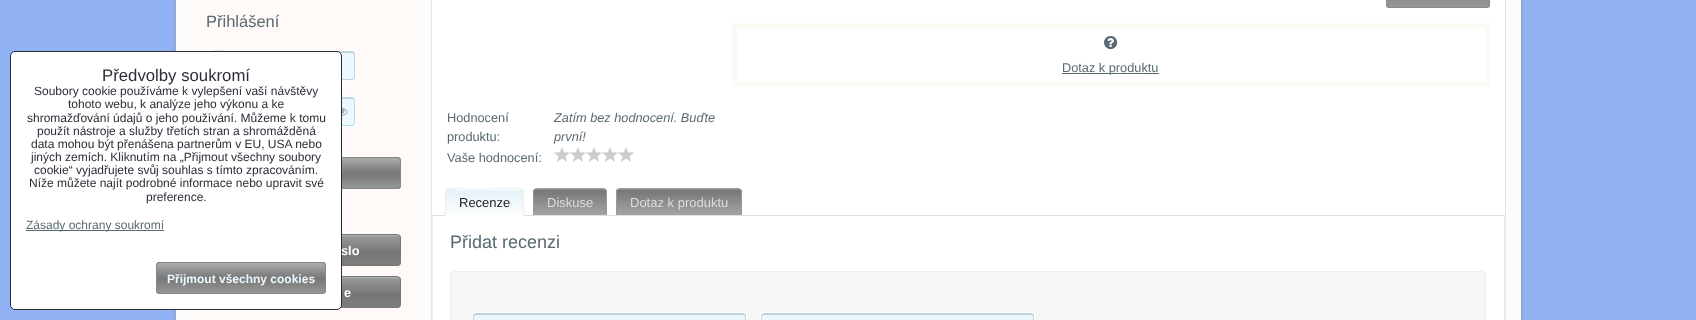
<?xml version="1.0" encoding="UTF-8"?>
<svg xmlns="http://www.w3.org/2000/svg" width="1696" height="320">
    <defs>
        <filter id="blur1" x="-50%" y="-200%" width="200%" height="500%"><feGaussianBlur stdDeviation="2.5"/></filter>
        <filter id="blur2" x="-50%" y="-200%" width="200%" height="500%"><feGaussianBlur stdDeviation="0.5"/></filter>
    </defs>
    <rect width="100%" height="100%" fill="#90B2F5"/>
    <rect x="176" y="-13" width="1345" height="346" rx="5" fill="#999999" filter="url(#blur1)"/>
    <rect x="176" y="0" width="1345" height="320" fill="#FBFBFB"/>
    <rect x="191" y="0" width="225" height="320" fill="#FFF9F7"/>
    <rect x="206.5" y="50.5" width="149" height="30" rx="2.5" fill="none" stroke="#FFFFFF"/>
    <rect x="207" y="51" width="148" height="29" rx="3" fill="#EBF8FF"/>
    <path d="M 210 53 H 352 C 353 53 354 54 354 55 C 354 54 354 53 353 52 H 234 C 230 52 208 47 208 55 C 208 54 209 53 210 53 Z" fill="#CCCCCC"/>
    <rect x="207.5" y="51.5" width="147" height="28" rx="2.5" fill="none" stroke="#B9D9E6"/>
    <rect x="206.5" y="96.5" width="149" height="30" rx="2.5" fill="none" stroke="#FFFFFF"/>
    <rect x="207" y="97" width="148" height="29" rx="3" fill="#EBF8FF"/>
    <path d="M 210 99 H 352 C 353 99 354 100 354 101 C 354 100 354 99 353 98 H 234 C 230 98 208 93 208 101 C 208 100 209 99 210 99 Z" fill="#CCCCCC"/>
    <rect x="207.5" y="97.5" width="147" height="28" rx="2.5" fill="none" stroke="#B9D9E6"/>
    <rect x="206" y="157" width="195" height="32" rx="4" fill="#444444" filter="url(#blur2)"/>
    <image x="342" y="158" width="59" height="31" href="img_03.png"/>
    <rect x="206.5" y="157.5" width="194" height="31" rx="3.5" fill="none" stroke="#888888"/>
    <image x="342" y="235" width="59" height="31" href="img_04.png"/>
    <rect x="206.5" y="234.5" width="194" height="31" rx="3.5" fill="none" stroke="#777777"/>
    <image x="341" y="277" width="60" height="31" href="img_05.png"/>
    <rect x="206.5" y="276.5" width="194" height="31" rx="3.5" fill="none" stroke="#777777"/>
    <rect x="10.5" y="51.5" width="331" height="258" rx="4.5" fill="#FFFFFF" stroke="#2B2E38"/>
    <text x="102" y="81" font-family="Liberation Sans" font-size="16.75" fill="#2B2E38">Předvolby soukromí</text>
    <text x="34" y="95" font-family="Liberation Sans" font-size="12" fill="#2B2E38">Soubory cookie používáme k vylepšení vaší návštěvy</text>
    <text x="68" y="108" font-family="Liberation Sans" font-size="12" fill="#2B2E38">tohoto webu, k analýze jeho výkonu a ke</text>
    <text x="27" y="122" font-family="Liberation Sans" font-size="12" fill="#2B2E38">shromažďování údajů o jeho používání. Můžeme k tomu</text>
    <text x="37" y="135" font-family="Liberation Sans" font-size="12" fill="#2B2E38">použít nástroje a služby třetích stran a shromážděná</text>
    <text font-family="Liberation Sans" font-size="12" fill="#2B2E38">
        <tspan x="31" y="148">data mohou být přenášena partnerům v EU, USA nebo</tspan>
        <tspan x="31" y="161">jiných zemích. Kliknutím na „Přijmout všechny soubory</tspan>
    </text>
    <text x="34" y="174" font-family="Liberation Sans" font-size="12" fill="#2B2E38">cookie“ vyjadřujete svůj souhlas s tímto zpracováním.</text>
    <text x="29" y="187" font-family="Liberation Sans" font-size="12" fill="#2B2E38">Níže můžete najít podrobné informace nebo upravit své</text>
    <text x="146" y="201" font-family="Liberation Sans" font-size="12" fill="#2B2E38">preference.</text>
    <rect x="26" y="230" width="138" height="1" fill="#586972"/>
    <text x="26" y="229" font-family="Liberation Sans" font-size="12" fill="#586972">Zásady ochrany soukromí</text>
    <rect x="156" y="262" width="170" height="32" rx="4" fill="#444444" filter="url(#blur2)"/>
    <image x="156" y="263" width="170" height="31" href="img_01.png"/>
    <rect x="156.5" y="262.5" width="169" height="31" rx="3.5" fill="none" stroke="#888888"/>
    <text x="167" y="283" font-family="Liberation Sans" font-size="12" font-weight="700" fill="#ECF8FF">Přijmout všechny cookies</text>
    <text x="206" y="27" font-family="Liberation Sans" font-size="16.5" fill="#586972">Přihlášení</text>
    <image x="342" y="107" width="6" height="9" href="img_02.png"/>
    <text x="341" y="255" font-family="Liberation Sans" font-size="12.75" font-weight="700" fill="#FFFFFF">slo</text>
    <text x="344" y="297" font-family="Liberation Sans" font-size="12.75" font-weight="700" fill="#FFFFFF">e</text>
    <rect x="431.5" y="-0.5" width="1074" height="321" fill="#FFFFFF" stroke="#E3E5E6"/>
    <rect x="1386" y="-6" width="104" height="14" rx="4" fill="#444444" filter="url(#blur2)"/>
    <image x="1386" y="0" width="104" height="8" href="img_06.png"/>
    <rect x="1386.5" y="-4.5" width="103" height="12" rx="3.5" fill="none" stroke="#888888"/>
    <rect x="734.5" y="25.5" width="753" height="59" fill="none" stroke="#FBFAF4" stroke-width="5"/>
    <image x="1104" y="35" width="14" height="15" href="img_07.png"/>
    <rect x="1062" y="73" width="97" height="1" fill="#586972"/>
    <text x="1062" y="72" font-family="Liberation Sans" font-size="12.75" fill="#586972">Dotaz k produktu</text>
    <text font-family="Liberation Sans" font-size="12.75" fill="#586972">
        <tspan x="447" y="122">Hodnocení</tspan>
        <tspan x="447" y="141">produktu:</tspan>
    </text>
    <text font-family="Liberation Sans" font-size="12.75" font-style="italic" fill="#586972">
        <tspan x="554" y="122">Zatím bez hodnocení. Buďte</tspan>
        <tspan x="554" y="141">první!</tspan>
    </text>
    <text x="447" y="162" font-family="Liberation Sans" font-size="12.75" fill="#586972">Vaše hodnocení:</text>
    <image x="554" y="147" width="80" height="15" href="img_08.png"/>
    <rect x="432" y="215" width="1073" height="1" fill="#D8E2E8"/>
    <path d="M 449 188 H 520 C 522 188 524 190 524 192 V 216 H 445 V 192 C 445 190 447 188 449 188 Z" fill="#FFFFFF"/>
    <image x="445" y="189" width="79" height="24" href="img_09.png"/>
    <path d="M 449 188 L 446 189 L 447 190 C 449 188 501 189 508 189 H 520 L 522 190 L 523 189 L 520 188 Z" fill="#EEEEEE"/>
    <path d="M 524 216 V 192 C 524 191 523.5 190 523 189 L 522 190 C 523 190 523 191 523 192 V 215 Z" fill="#EEEEEE"/>
    <path d="M 524 216 L 523 215 H 446 L 445 216 Z" fill="#FFFFFF"/>
    <path d="M 445 216 L 446 215 V 192 C 446 191 446 190 447 190 L 446 189 C 445.5 190 445 191 445 192 Z" fill="#EEEEEE"/>
    <text x="459" y="207" font-family="Liberation Sans" font-size="13" fill="#222222">Recenze</text>
    <image x="533" y="189" width="74" height="26" href="img_10.png"/>
    <path d="M 537 188 H 603 C 605 188 607 190 607 192 V 215 H 533 V 192 C 533 190 535 188 537 188 Z M 537 189 H 603 C 605 189 606 190 606 192 V 215 H 534 V 192 C 534 190 535 189 537 189 Z" fill="#999999" fill-rule="evenodd"/>
    <text x="547" y="207" font-family="Liberation Sans" font-size="13" fill="#DDDDDD">Diskuse</text>
    <image x="616" y="189" width="126" height="26" href="img_11.png"/>
    <path d="M 620 188 H 738 C 740 188 742 190 742 192 V 215 H 616 V 192 C 616 190 618 188 620 188 Z M 620 189 H 738 C 740 189 741 190 741 192 V 215 H 617 V 192 C 617 190 618 189 620 189 Z" fill="#999999" fill-rule="evenodd"/>
    <text x="630" y="207" font-family="Liberation Sans" font-size="13" fill="#DDDDDD">Dotaz k produktu</text>
    <rect x="1504" y="216" width="1" height="104" fill="#EEEEEE"/>
    <rect x="432" y="216" width="1" height="104" fill="#EEEEEE"/>
    <text x="450" y="248" font-family="Liberation Sans" font-size="18" fill="#586972">Přidat recenzi</text>
    <rect x="450.5" y="271.5" width="1035" height="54" rx="4.5" fill="#F7F7F7" stroke="#EDEDED"/>
    <rect x="472.5" y="312.5" width="274" height="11" rx="2.5" fill="none" stroke="#FFFFFF"/>
    <rect x="473" y="313" width="273" height="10" rx="3" fill="#EBF8FF"/>
    <path d="M 476 315 H 743 C 744 315 745 316 745 317 C 745 316 745 314 743 314 H 476 L 474 315 V 317 C 474 316 475 315 476 315 Z" fill="#CCCCCC"/>
    <rect x="473.5" y="313.5" width="272" height="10" rx="2.5" fill="none" stroke="#B9D9E6"/>
    <rect x="760.5" y="312.5" width="274" height="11" rx="2.5" fill="none" stroke="#FFFFFF"/>
    <rect x="761" y="313" width="273" height="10" rx="3" fill="#EBF8FF"/>
    <path d="M 764 315 H 1031 C 1032 315 1033 316 1033 317 V 315 L 1031 314 H 764 C 762 314 762 316 762 317 C 762 316 763 315 764 315 Z" fill="#CCCCCC"/>
    <rect x="761.5" y="313.5" width="272" height="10" rx="2.5" fill="none" stroke="#B9D9E6"/>
</svg>
